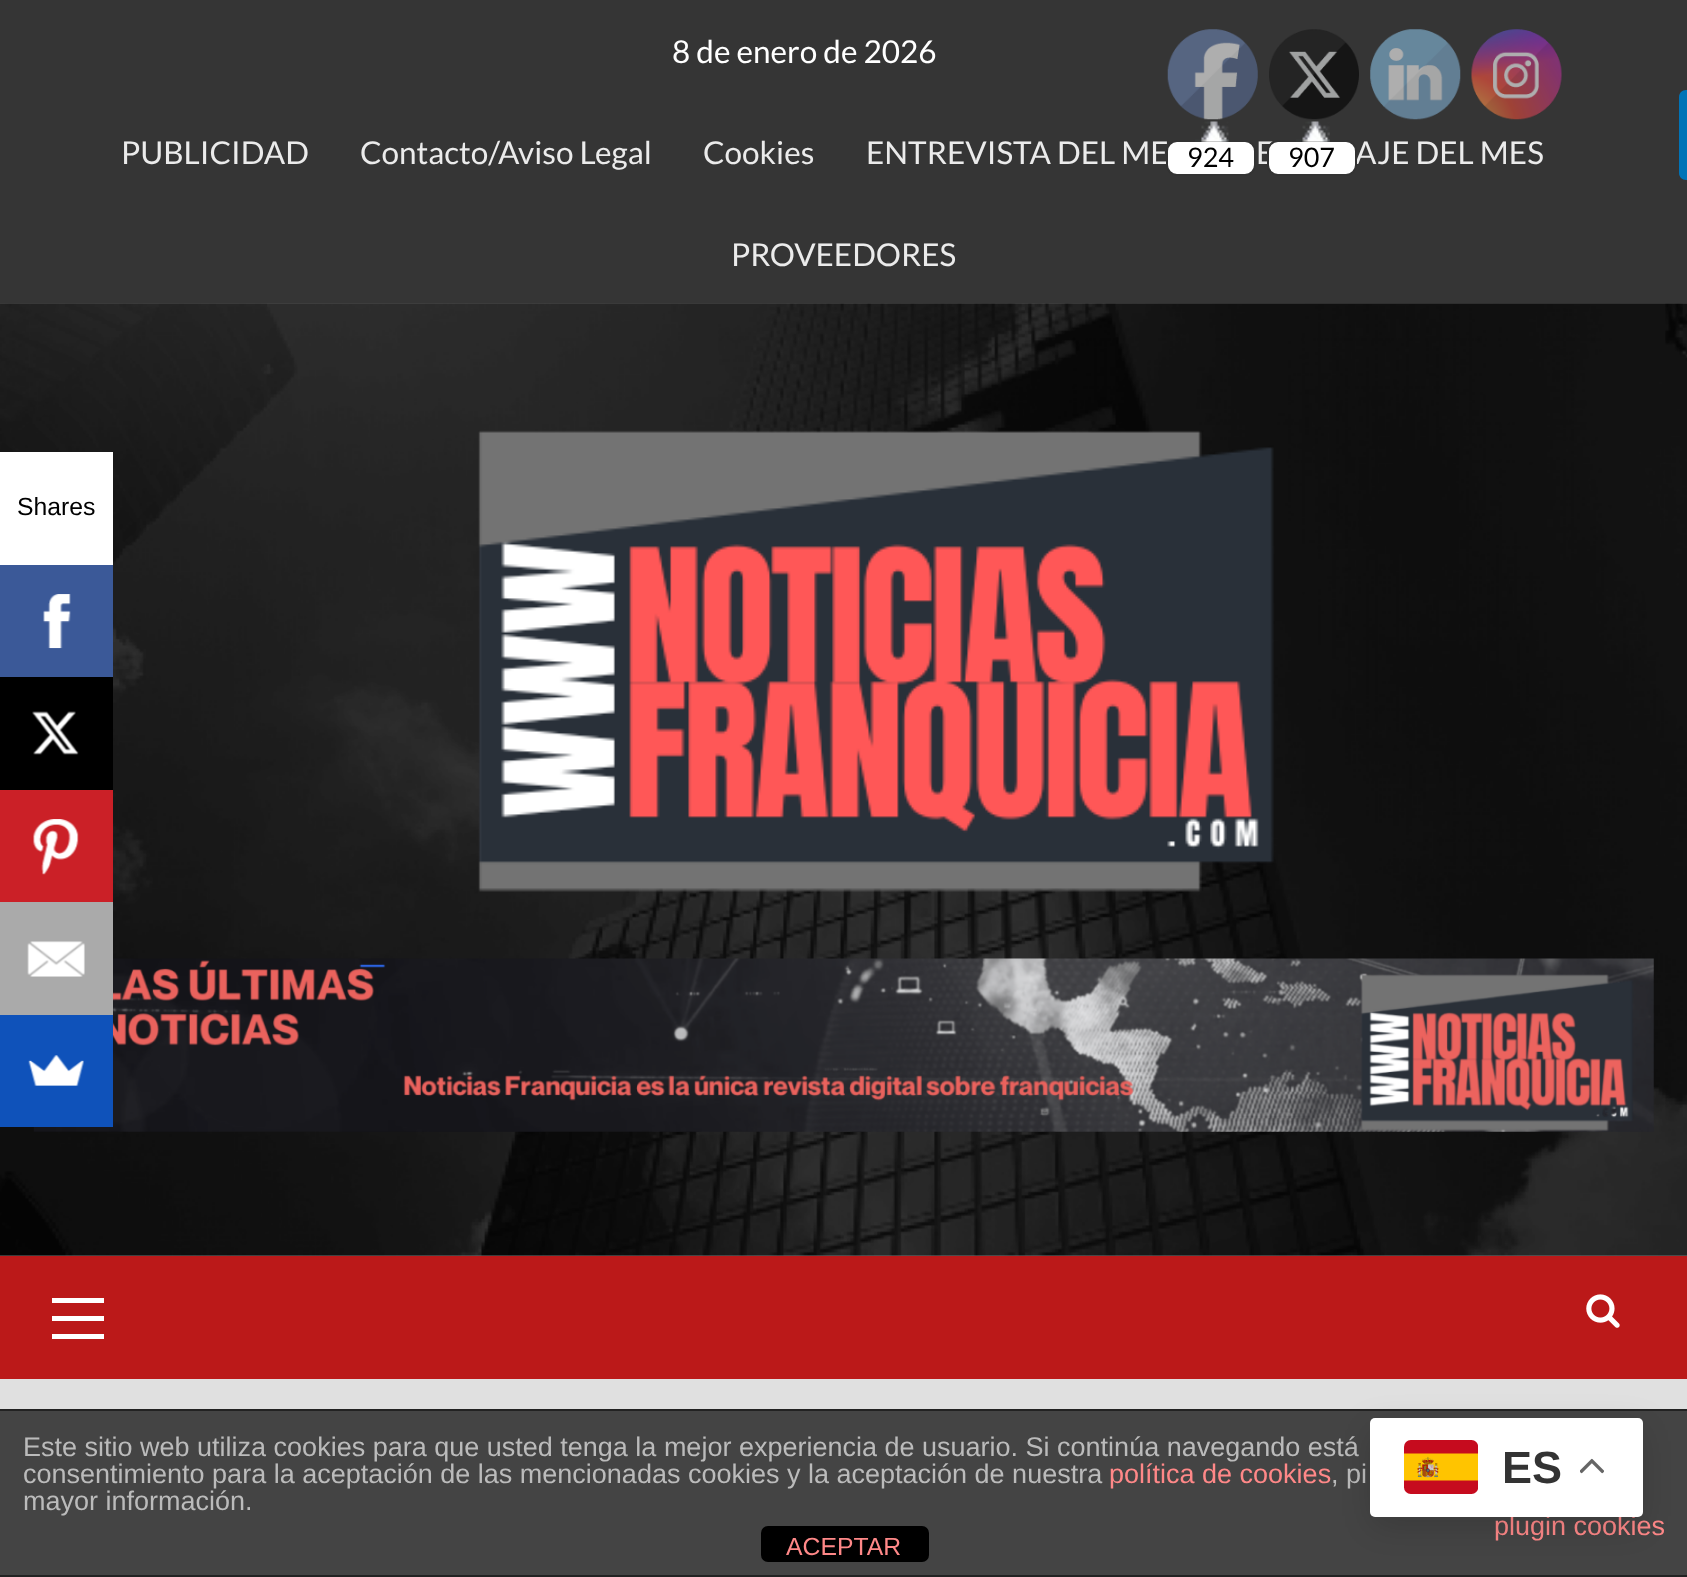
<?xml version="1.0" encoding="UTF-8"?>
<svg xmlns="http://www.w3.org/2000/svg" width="1687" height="1577">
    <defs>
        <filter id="blur1" x="-50%" y="-200%" width="200%" height="500%"><feGaussianBlur stdDeviation="17"/></filter>
    </defs>
    <rect width="100%" height="100%" fill="#E0E0E0"/>
    <rect x="0" y="1255" width="1687" height="1" fill="#707070"/>
    <rect x="0" y="0" width="1687" height="304" fill="#353535"/>
    <text x="672" y="63" font-family="Lato" font-size="31.5" fill="#FFFFFF">8 de enero de 2026</text>
    <text x="121" y="164" font-family="Lato" font-size="31.5" fill="#EBEBEB">PUBLICIDAD</text>
    <text x="360" y="164" font-family="Lato" font-size="31.5" fill="#EBEBEB">Contacto/Aviso Legal</text>
    <text x="703" y="164" font-family="Lato" font-size="31.5" fill="#EBEBEB">Cookies</text>
    <text x="866" y="164" font-family="Lato" font-size="31.5" fill="#EBEBEB">ENTREVISTA DEL ME</text>
    <text x="1256" y="164" font-family="Lato" font-size="31.5" fill="#EBEBEB">E</text>
    <text x="1355" y="164" font-family="Lato" font-size="31.5" fill="#EBEBEB">AJE DEL MES</text>
    <text x="731" y="266" font-family="Lato" font-size="31.5" fill="#EBEBEB">PROVEEDORES</text>
    <image x="0" y="303" width="1687" height="953" href="img_01.png"/>
    <image x="478" y="430" width="796" height="462" href="img_02.png"/>
    <image x="33" y="958" width="1621" height="174" href="img_03.png"/>
    <rect x="0" y="1256" width="1687" height="123" fill="#BB1919"/>
    <rect x="52" y="1316" width="52" height="5" fill="#FFFFFF"/>
    <rect x="52" y="1298" width="52" height="5" fill="#FFFFFF"/>
    <rect x="52" y="1334" width="52" height="5" fill="#FFFFFF"/>
    <image x="1586" y="1294" width="34" height="34" href="img_04.png"/>
    <path d="M 1686 90 H 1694 V 180 H 1686 C 1682 180 1679 177 1679 173 V 97 C 1679 93 1682 90 1686 90 Z" fill="#0073B7"/>
    <image x="1370" y="29" width="91" height="91" href="img_05.png"/>
    <image x="1471" y="29" width="91" height="91" href="img_06.png"/>
    <image x="1167" y="29" width="91" height="91" href="img_07.png"/>
    <rect x="1167" y="141" width="88" height="34" rx="10" fill="#FFFFFF" stroke="#333333" stroke-width="2"/>
    <image x="1195" y="121" width="34" height="21" href="img_08.png"/>
    <text x="1187" y="167" font-family="Lato" font-size="27" fill="#000000">924</text>
    <image x="1269" y="29" width="90" height="91" href="img_09.png"/>
    <rect x="1268" y="141" width="88" height="34" rx="10" fill="#FFFFFF" stroke="#333333" stroke-width="2"/>
    <image x="1296" y="121" width="34" height="21" href="img_10.png"/>
    <text x="1288" y="167" font-family="Lato" font-size="27" fill="#000000">907</text>
    <rect x="0" y="452" width="113" height="113" fill="#FFFFFF"/>
    <text x="17" y="515" font-family="Liberation Sans" font-size="24.75" fill="#000000">Shares</text>
    <rect x="0" y="565" width="113" height="112" fill="#3B5998"/>
    <image x="43" y="594" width="28" height="55" href="img_11.png"/>
    <rect x="0" y="677" width="113" height="113" fill="#000000"/>
    <image x="32" y="711" width="47" height="44" href="img_12.png"/>
    <rect x="0" y="790" width="113" height="112" fill="#CB2027"/>
    <image x="33" y="819" width="46" height="56" href="img_13.png"/>
    <rect x="0" y="902" width="113" height="113" fill="#AAAAAA"/>
    <image x="27" y="941" width="58" height="36" href="img_14.png"/>
    <rect x="0" y="1015" width="113" height="112" fill="#0F52BA"/>
    <image x="28" y="1055" width="56" height="31" href="img_15.png"/>
    <rect x="0" y="1411" width="1687" height="164" fill="#444444"/>
    <rect x="0" y="1409" width="1687" height="2" fill="#222222"/>
    <rect x="0" y="1575" width="1687" height="2" fill="#222222"/>
    <text font-family="Liberation Sans" font-size="27" fill="#BBBBBB">
        <tspan x="23" y="1456">Este sitio web utiliza cookies para que usted tenga la mejor experiencia de usuario. Si continúa navegando está</tspan>
        <tspan x="23" y="1483">consentimiento para la aceptación de las mencionadas cookies y la aceptación de nuestra</tspan>
    </text>
    <text x="1109" y="1483" font-family="Liberation Sans" font-size="27" fill="#FF8888">política de cookies</text>
    <text x="1331" y="1483" font-family="Liberation Sans" font-size="27" fill="#BBBBBB">, pi</text>
    <text x="23" y="1510" font-family="Liberation Sans" font-size="27" fill="#BBBBBB">mayor información.</text>
    <text x="1494" y="1535" font-family="Liberation Sans" font-size="27" fill="#FF8888">plugin cookies</text>
    <rect x="761" y="1526" width="168" height="36" rx="7" fill="#000000"/>
    <text x="786" y="1555" font-family="Liberation Sans" font-size="24.75" fill="#FF8888">ACEPTAR</text>
    <rect x="1370" y="1429" width="273" height="99" rx="5" fill="#000000" fill-opacity="0.15" filter="url(#blur1)"/>
    <rect x="1370" y="1418" width="273" height="99" rx="5" fill="#FFFFFF"/>
    <image x="1404" y="1440" width="74" height="54" href="img_16.png"/>
    <text x="1502" y="1483" font-family="Liberation Sans" font-size="45" font-weight="700" fill="#333333">ES</text>
    <image x="1580" y="1458" width="24" height="16" href="img_17.png"/>
</svg>
